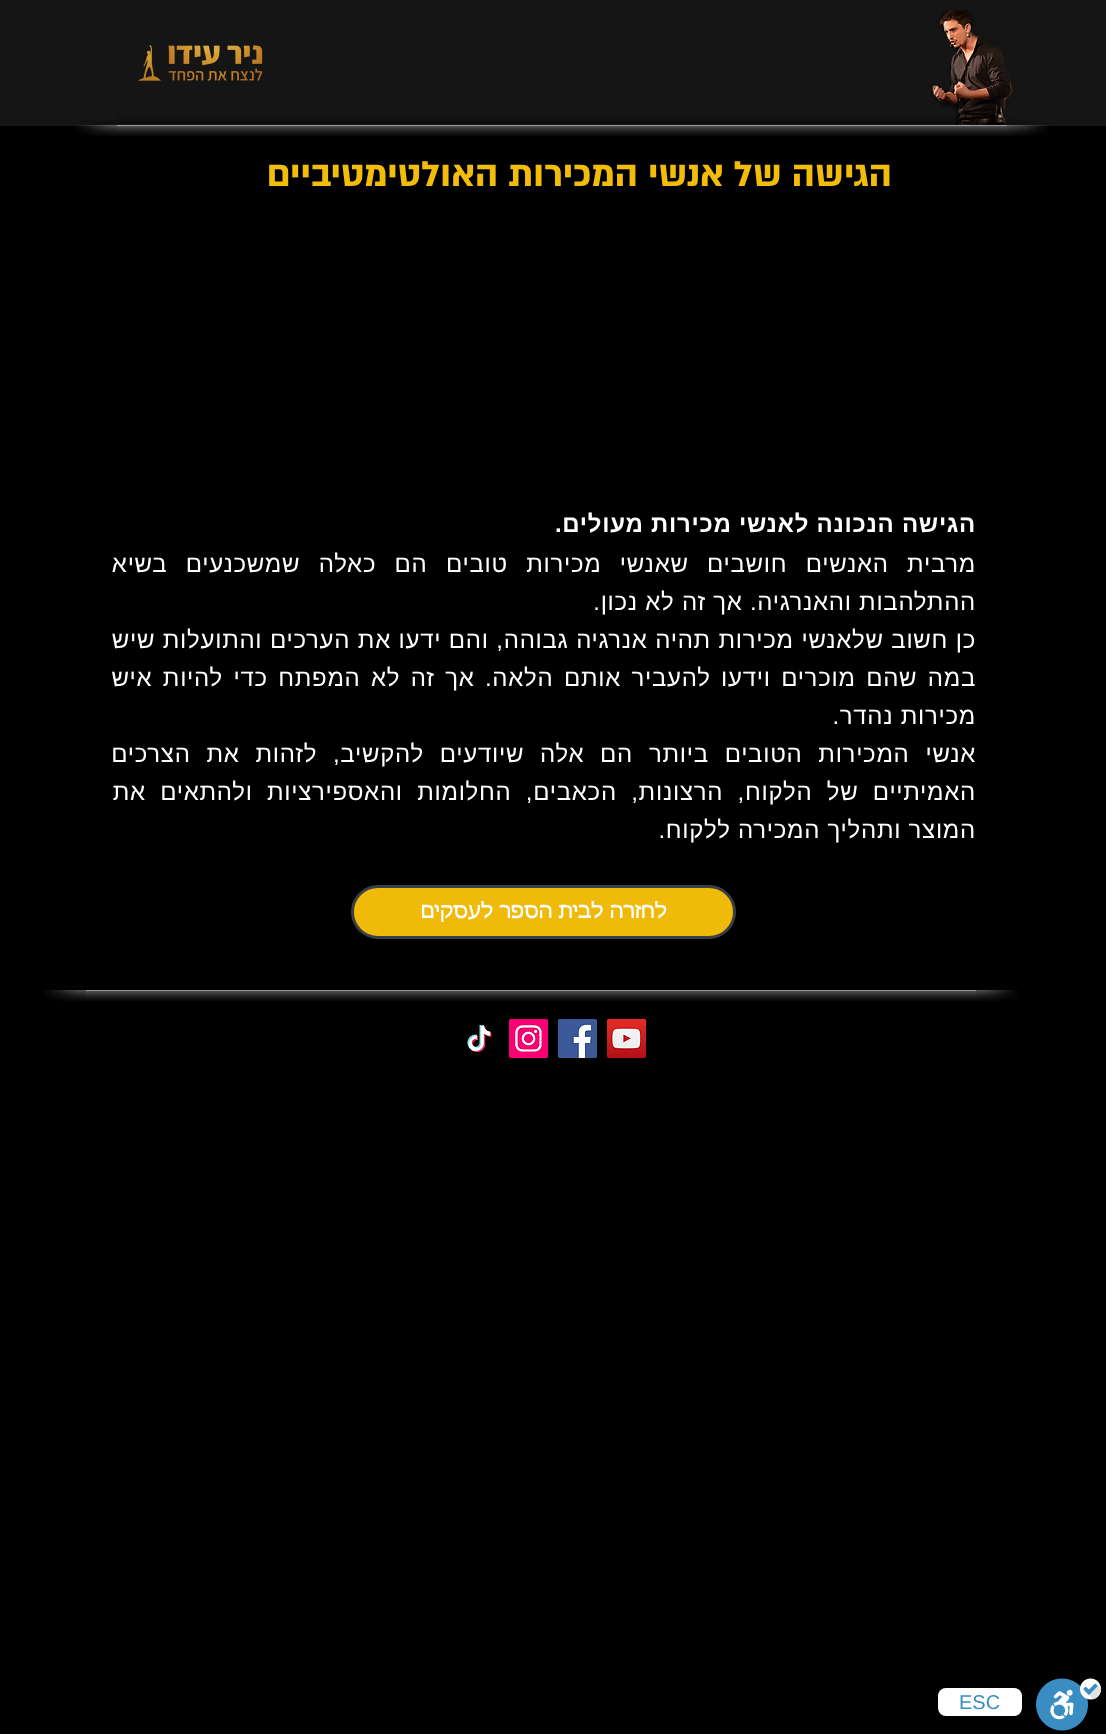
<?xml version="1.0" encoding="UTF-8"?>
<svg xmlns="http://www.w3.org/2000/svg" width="1106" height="1734">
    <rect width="100%" height="100%" fill="#000000"/>
    <rect x="0" y="0" width="1106" height="126" fill="#151515"/>
    <image x="931" y="10" width="82" height="116" href="img_01.png"/>
    <image x="138" y="45" width="125" height="36" href="img_02.png"/>
    <image x="117" y="114" width="890" height="22" href="img_03.png"/>
    <image x="1007" y="119" width="42" height="17" href="img_04.png"/>
    <image x="75" y="120" width="42" height="16" href="img_05.png"/>
    <text x="892" y="186" font-family="'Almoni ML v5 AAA'" font-size="41" font-weight="700" direction="rtl" fill="#F2BC0A">הגישה של אנשי המכירות האולטימטיביים</text>
    <text x="976" y="532" font-family="Liberation Sans" font-size="24" font-weight="700" letter-spacing="0.72" direction="rtl" fill="#FFFFFF">הגישה הנכונה לאנשי מכירות מעולים.</text>
    <text font-family="Liberation Sans" font-size="24" letter-spacing="0.72" direction="rtl" fill="#FFFFFF">
        <tspan x="976" y="572" word-spacing="11">מרבית האנשים חושבים שאנשי מכירות טובים הם כאלה שמשכנעים בשיא</tspan>
        <tspan x="976" y="610">ההתלהבות והאנרגיה. אך זה לא נכון.</tspan>
        <tspan x="976" y="648" word-spacing="0.25">כן חשוב שלאנשי מכירות תהיה אנרגיה גבוהה, והם ידעו את הערכים והתועלות שיש</tspan>
        <tspan x="976" y="686" word-spacing="3.1">במה שהם מוכרים וידעו להעביר אותם הלאה. אך זה לא המפתח כדי להיות איש</tspan>
        <tspan x="976" y="724">מכירות נהדר.</tspan>
        <tspan x="976" y="762" word-spacing="8.5">אנשי המכירות הטובים ביותר הם אלה שיודעים להקשיב, לזהות את הצרכים</tspan>
        <tspan x="976" y="800" word-spacing="7">האמיתיים של הלקוח, הרצונות, הכאבים, החלומות והאספירציות ולהתאים את</tspan>
        <tspan x="976" y="838">המוצר ותהליך המכירה ללקוח.</tspan>
    </text>
    <rect x="352.5" y="886.5" width="382" height="51" rx="25.5" fill="#F0BA0A" stroke="#393F44" stroke-width="3"/>
    <text x="667" y="918" font-family="tahoma" font-size="20" font-weight="700" direction="rtl" fill="#FFFFFF">לחזרה לבית הספר לעסקים</text>
    <image x="86" y="990" width="890" height="11" href="img_06.png"/>
    <image x="976" y="990" width="42" height="11" href="img_07.png"/>
    <image x="44" y="990" width="42" height="11" href="img_08.png"/>
    <image x="607" y="1019" width="39" height="39" href="img_09.png"/>
    <image x="558" y="1019" width="39" height="39" href="img_10.png"/>
    <image x="509" y="1019" width="39" height="39" href="img_11.png"/>
    <image x="467" y="1025" width="25" height="28" href="img_12.png"/>
    <image x="1036" y="1678" width="66" height="53" href="img_13.png"/>
    <rect x="938" y="1688" width="84" height="28" rx="8" fill="#FFFFFF"/>
    <text x="959" y="1709" font-family="Liberation Sans" font-size="20" fill="#3A8DC2">ESC</text>
</svg>
